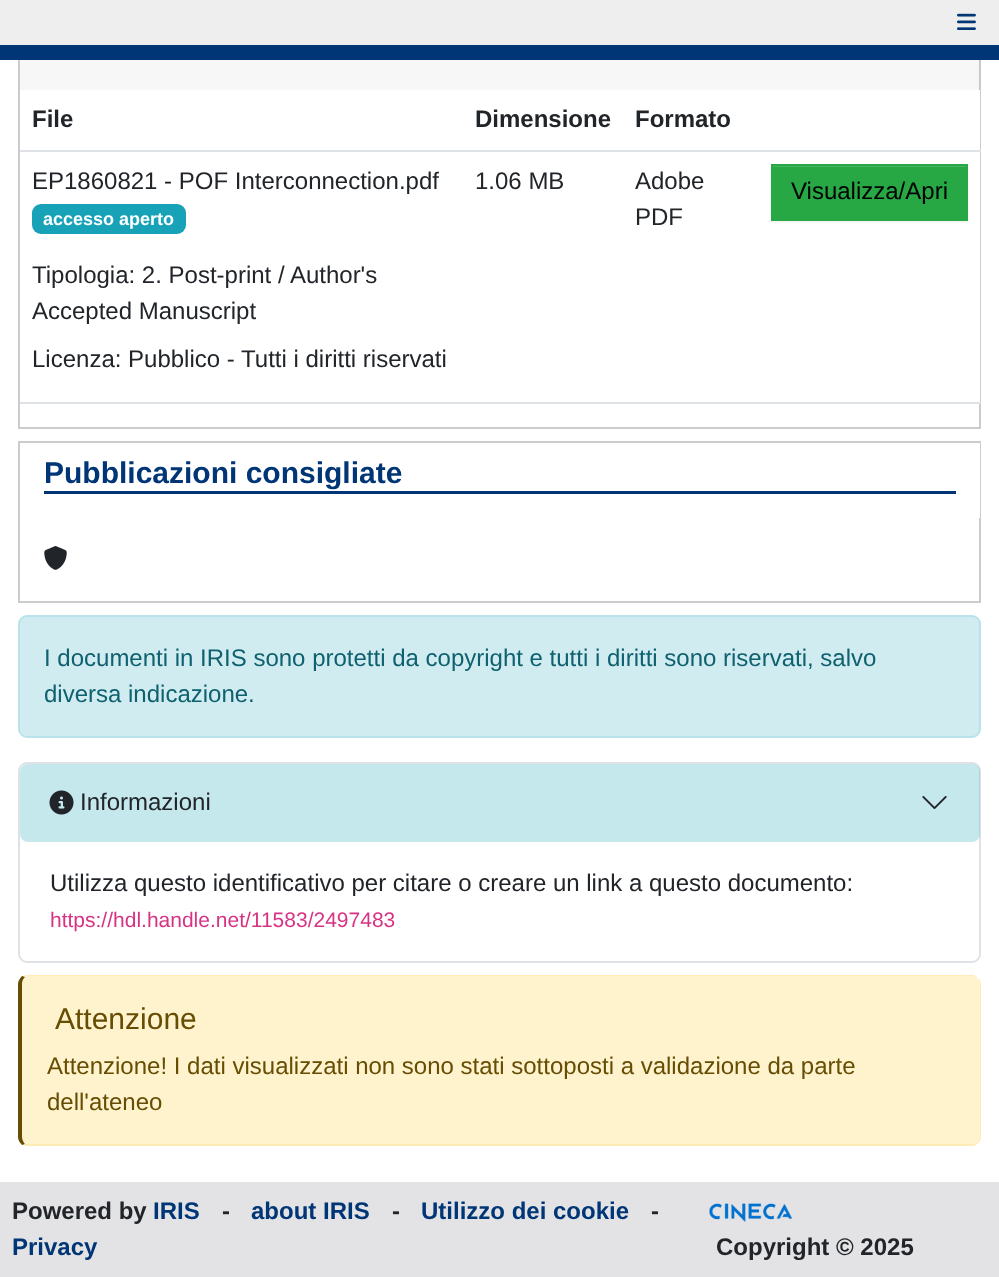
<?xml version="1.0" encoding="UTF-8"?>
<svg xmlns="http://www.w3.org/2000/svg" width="999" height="1277">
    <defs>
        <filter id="blur1" x="-50%" y="-200%" width="200%" height="500%"><feGaussianBlur stdDeviation="1"/></filter>
    </defs>
    <rect width="100%" height="100%" fill="#FFFFFF"/>
    <rect x="19" y="30" width="961" height="398" fill="none" stroke="#CCCCCC" stroke-width="2"/>
    <rect x="0" y="0" width="999" height="45" fill="#EEEEEE"/>
    <rect x="0" y="45" width="999" height="15" fill="#003576"/>
    <image x="957" y="13" width="19" height="17" href="img_01.png"/>
    <rect x="20" y="60" width="960" height="30" fill="#000000" fill-opacity="0.03"/>
    <rect x="979" y="90" width="1" height="312" fill="#FFFFFF"/>
    <text x="32" y="127" font-family="Liberation Sans" font-size="24" font-weight="700" fill="#212529">File</text>
    <text x="475" y="127" font-family="Liberation Sans" font-size="24" font-weight="700" fill="#212529">Dimensione</text>
    <text x="635" y="127" font-family="Liberation Sans" font-size="24" font-weight="700" fill="#212529">Formato</text>
    <rect x="20" y="150" width="961" height="2" fill="#DEE2E6"/>
    <text x="32" y="189" font-family="Liberation Sans" font-size="24" fill="#212529">EP1860821 - POF Interconnection.pdf</text>
    <rect x="32" y="204" width="154" height="30" rx="9" fill="#17A2B8"/>
    <text x="43" y="225" font-family="Liberation Sans" font-size="18" font-weight="700" fill="#FFFFFF">accesso aperto</text>
    <text font-family="Liberation Sans" font-size="24" fill="#212529">
        <tspan x="32" y="283">Tipologia: 2. Post-print / Author's</tspan>
        <tspan x="32" y="319">Accepted Manuscript</tspan>
    </text>
    <text x="32" y="367" font-family="Liberation Sans" font-size="24" fill="#212529">Licenza: Pubblico - Tutti i diritti riservati</text>
    <text x="475" y="189" font-family="Liberation Sans" font-size="24" fill="#212529">1.06 MB</text>
    <text font-family="Liberation Sans" font-size="24" fill="#212529">
        <tspan x="635" y="189">Adobe</tspan>
        <tspan x="635" y="225">PDF</tspan>
    </text>
    <rect x="20" y="402" width="961" height="2" fill="#DEE2E6"/>
    <rect x="771" y="165" width="197" height="57" fill="#000000" fill-opacity="0.07" filter="url(#blur1)"/>
    <rect x="773" y="167" width="193" height="52" fill="#28A745"/>
    <rect x="773" y="166" width="193" height="1" fill="#48B461"/>
    <rect x="772" y="165" width="195" height="55" fill="none" stroke="#28A745" stroke-width="2"/>
    <text x="791" y="199" font-family="Liberation Sans" font-size="24" fill="#000000">Visualizza/Apri</text>
    <rect x="19" y="442" width="961" height="160" fill="none" stroke="#CCCCCC" stroke-width="2"/>
    <rect x="979" y="443" width="1" height="75" fill="#FFFFFF"/>
    <rect x="44" y="491" width="912" height="3" fill="#003576"/>
    <text x="44" y="483" font-family="Liberation Sans" font-size="30" font-weight="700" fill="#003576">Pubblicazioni consigliate</text>
    <image x="44" y="546" width="23" height="24" href="img_02.png"/>
    <rect x="19" y="616" width="961" height="121" rx="8" fill="#D1ECF1" stroke="#B9E3EA" stroke-width="2"/>
    <text font-family="Liberation Sans" font-size="24" fill="#0E616E">
        <tspan x="44" y="666">I documenti in IRIS sono protetti da copyright e tutti i diritti sono riservati, salvo</tspan>
        <tspan x="44" y="702">diversa indicazione.</tspan>
    </text>
    <rect x="19" y="763" width="961" height="199" rx="8" fill="none" stroke="#DEE2E6" stroke-width="2"/>
    <rect x="20" y="764" width="960" height="78" rx="8" fill="#17A2B8" fill-opacity="0.25"/>
    <image x="49" y="790" width="25" height="25" href="img_03.png"/>
    <text x="80" y="810" font-family="Liberation Sans" font-size="24" fill="#212529">Informazioni</text>
    <image x="922" y="796" width="25" height="13" href="img_04.png"/>
    <text x="50" y="891" font-family="Liberation Sans" font-size="24" fill="#212529">Utilizza questo identificativo per citare o creare un link a questo documento:</text>
    <text x="50" y="927" font-family="Liberation Sans" font-size="21" fill="#D63384">https://hdl.handle.net/11583/2497483</text>
    <path d="M 27 976 H 972 C 976 976 980 980 980 984 V 1137 C 980 1141 976 1144 972 1144 H 27 C 25 1144 22 1141 22 1137 V 984 C 22 980 25 976 27 976 Z" fill="#FFF3CD"/>
    <path d="M 27 975 C 25 975 24 976 22 976 L 25 977 L 27 976 H 972 C 974 976 976 977 978 978 C 977 976 974 975 972 975 Z" fill="#FFECB5"/>
    <path d="M 981 1137 V 984 C 981 982 980 979 978 978 C 979 980 980 982 980 984 V 1137 C 980 1139 979 1141 977 1142 L 978 1143 C 980 1142 981 1140 981 1137 Z" fill="#FFECB5"/>
    <path d="M 27 1146 H 972 C 974 1146 977 1145 978 1143 L 977 1142 C 976 1143 974 1144 972 1144 H 27 H 25 L 22 1145 C 24 1145 25 1146 27 1146 Z" fill="#FFECB5"/>
    <path d="M 18 984 V 1137 C 18 1140 20 1143 22 1145 L 25 1144 C 24 1143 22 1140 22 1137 V 984 C 22 981 23 979 25 977 L 22 976 C 20 978 18 981 18 984 Z" fill="#664D03"/>
    <text x="55" y="1029" font-family="Liberation Sans" font-size="30" fill="#664D03">Attenzione</text>
    <text font-family="Liberation Sans" font-size="24" fill="#664D03">
        <tspan x="47" y="1074">Attenzione! I dati visualizzati non sono stati sottoposti a validazione da parte</tspan>
        <tspan x="47" y="1110">dell'ateneo</tspan>
    </text>
    <rect x="0" y="1182" width="999" height="95" fill="#E3E3E5"/>
    <text x="12" y="1219" font-family="Liberation Sans" font-size="24" font-weight="700" fill="#212529">Powered by</text>
    <text x="153" y="1219" font-family="Liberation Sans" font-size="24" font-weight="700" fill="#003576">IRIS</text>
    <text x="222" y="1219" font-family="Liberation Sans" font-size="24" font-weight="700" fill="#212529">-</text>
    <text x="251" y="1219" font-family="Liberation Sans" font-size="24" font-weight="700" fill="#003576">about IRIS</text>
    <text x="392" y="1219" font-family="Liberation Sans" font-size="24" font-weight="700" fill="#212529">-</text>
    <text x="421" y="1219" font-family="Liberation Sans" font-size="24" font-weight="700" fill="#003576">Utilizzo dei cookie</text>
    <text x="651" y="1219" font-family="Liberation Sans" font-size="24" font-weight="700" fill="#212529">-</text>
    <text x="12" y="1255" font-family="Liberation Sans" font-size="24" font-weight="700" fill="#003576">Privacy</text>
    <image x="709" y="1203" width="83" height="19" href="img_05.png"/>
    <text x="716" y="1255" font-family="Liberation Sans" font-size="24" font-weight="700" fill="#212529">Copyright © 2025</text>
</svg>
